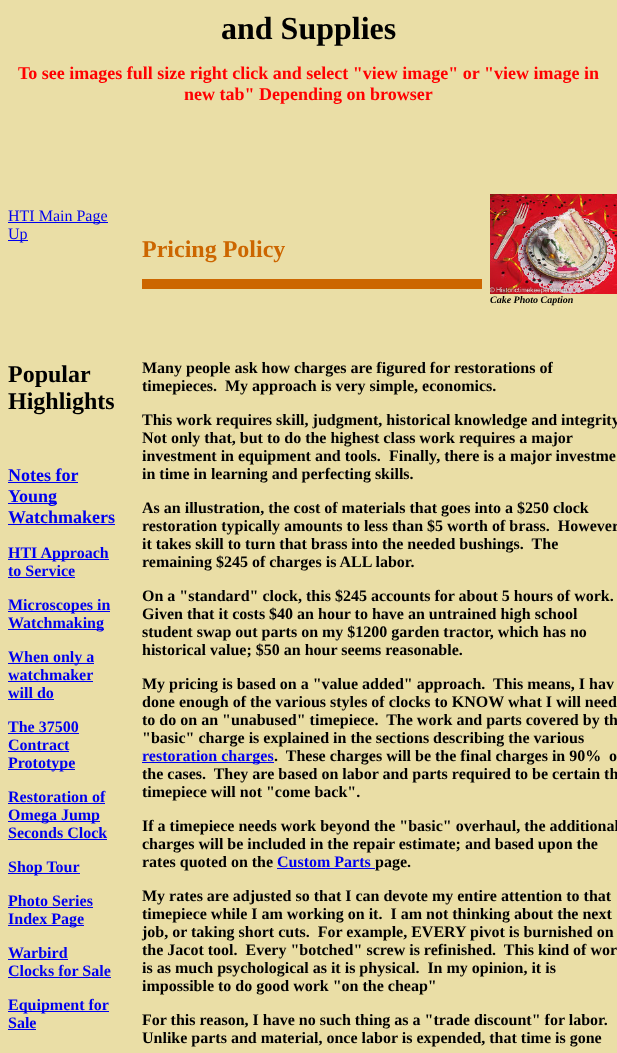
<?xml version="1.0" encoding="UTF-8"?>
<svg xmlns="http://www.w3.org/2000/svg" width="617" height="1053">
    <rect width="100%" height="100%" fill="#EADEA6"/>
    <text x="221" y="39" font-family="Liberation Serif" font-size="32" font-weight="700" fill="#000000">and Supplies</text>
    <text x="18" y="79" font-family="Liberation Serif" font-size="18" font-weight="700" fill="#FF0000">To see images full size right click and select "view image" or "view image in</text>
    <text x="184" y="100" font-family="Liberation Serif" font-size="18" font-weight="700" fill="#FF0000">new tab" Depending on browser</text>
    <rect x="8" y="222" width="100" height="1" fill="#0000EE"/>
    <text x="8" y="221" font-family="Liberation Serif" font-size="16" fill="#0000EE">HTI Main Page</text>
    <rect x="8" y="240" width="20" height="1" fill="#0000EE"/>
    <text x="8" y="239" font-family="Liberation Serif" font-size="16" fill="#0000EE">Up</text>
    <text font-family="Liberation Serif" font-size="24" font-weight="700" fill="#000000">
        <tspan x="8" y="382">Popular</tspan>
        <tspan x="8" y="409">Highlights</tspan>
    </text>
    <text x="8" y="481" font-family="Liberation Serif" font-size="18" font-weight="700" fill="#0000EE">Notes for</text>
    <rect x="8" y="482" width="70" height="1" fill="#0000EE"/>
    <rect x="8" y="503" width="49" height="1" fill="#0000EE"/>
    <text font-family="Liberation Serif" font-size="18" font-weight="700" fill="#0000EE">
        <tspan x="8" y="502">Young</tspan>
        <tspan x="8" y="523">Watchmakers</tspan>
    </text>
    <rect x="8" y="524" width="107" height="1" fill="#0000EE"/>
    <rect x="8" y="559" width="101" height="1" fill="#0000EE"/>
    <text font-family="Liberation Serif" font-size="16" font-weight="700" fill="#0000EE">
        <tspan x="8" y="558">HTI Approach</tspan>
        <tspan x="8" y="576">to Service</tspan>
    </text>
    <rect x="8" y="577" width="67" height="1" fill="#0000EE"/>
    <rect x="8" y="611" width="102" height="1" fill="#0000EE"/>
    <text x="8" y="610" font-family="Liberation Serif" font-size="16" font-weight="700" fill="#0000EE">Microscopes in</text>
    <rect x="8" y="629" width="96" height="1" fill="#0000EE"/>
    <text x="8" y="628" font-family="Liberation Serif" font-size="16" font-weight="700" fill="#0000EE">Watchmaking</text>
    <rect x="8" y="663" width="86" height="1" fill="#0000EE"/>
    <text font-family="Liberation Serif" font-size="16" font-weight="700" fill="#0000EE">
        <tspan x="8" y="662">When only a</tspan>
        <tspan x="8" y="680">watchmaker</tspan>
    </text>
    <rect x="8" y="681" width="85" height="1" fill="#0000EE"/>
    <text x="8" y="698" font-family="Liberation Serif" font-size="16" font-weight="700" fill="#0000EE">will do</text>
    <rect x="8" y="699" width="46" height="1" fill="#0000EE"/>
    <text x="8" y="732" font-family="Liberation Serif" font-size="16" font-weight="700" fill="#0000EE">The 37500</text>
    <rect x="8" y="733" width="71" height="1" fill="#0000EE"/>
    <text x="8" y="750" font-family="Liberation Serif" font-size="16" font-weight="700" fill="#0000EE">Contract</text>
    <rect x="8" y="751" width="61" height="1" fill="#0000EE"/>
    <rect x="8" y="769" width="67" height="1" fill="#0000EE"/>
    <text x="8" y="768" font-family="Liberation Serif" font-size="16" font-weight="700" fill="#0000EE">Prototype</text>
    <text x="8" y="802" font-family="Liberation Serif" font-size="16" font-weight="700" fill="#0000EE">Restoration of</text>
    <rect x="8" y="803" width="97" height="1" fill="#0000EE"/>
    <rect x="8" y="821" width="92" height="1" fill="#0000EE"/>
    <text font-family="Liberation Serif" font-size="16" font-weight="700" fill="#0000EE">
        <tspan x="8" y="820">Omega Jump</tspan>
        <tspan x="8" y="838">Seconds Clock</tspan>
    </text>
    <rect x="8" y="839" width="99" height="1" fill="#0000EE"/>
    <rect x="8" y="873" width="72" height="1" fill="#0000EE"/>
    <text x="8" y="872" font-family="Liberation Serif" font-size="16" font-weight="700" fill="#0000EE">Shop Tour</text>
    <text x="8" y="906" font-family="Liberation Serif" font-size="16" font-weight="700" fill="#0000EE">Photo Series</text>
    <rect x="8" y="907" width="85" height="1" fill="#0000EE"/>
    <rect x="8" y="925" width="76" height="1" fill="#0000EE"/>
    <text x="8" y="924" font-family="Liberation Serif" font-size="16" font-weight="700" fill="#0000EE">Index Page</text>
    <text x="8" y="958" font-family="Liberation Serif" font-size="16" font-weight="700" fill="#0000EE">Warbird</text>
    <rect x="8" y="959" width="60" height="1" fill="#0000EE"/>
    <text x="8" y="976" font-family="Liberation Serif" font-size="16" font-weight="700" fill="#0000EE">Clocks for Sale</text>
    <rect x="8" y="977" width="103" height="1" fill="#0000EE"/>
    <rect x="8" y="1011" width="101" height="1" fill="#0000EE"/>
    <text font-family="Liberation Serif" font-size="16" font-weight="700" fill="#0000EE">
        <tspan x="8" y="1010">Equipment for</tspan>
        <tspan x="8" y="1028">Sale</tspan>
    </text>
    <rect x="8" y="1029" width="28" height="1" fill="#0000EE"/>
    <text x="142" y="257" font-family="Liberation Serif" font-size="24" font-weight="700" fill="#CC6600">Pricing Policy</text>
    <rect x="142" y="279" width="340" height="10" fill="#CC6600"/>
    <image x="490" y="194" width="127" height="100" href="img_01.png"/>
    <text x="490" y="303" font-family="Liberation Serif" font-size="10" font-weight="700" font-style="italic" fill="#000000">Cake Photo Caption</text>
    <text font-family="Liberation Serif" font-size="16" font-weight="700" fill="#000000">
        <tspan x="142" y="373">Many people ask how charges are figured for restorations of</tspan>
        <tspan x="142" y="391">timepieces.</tspan>
    </text>
    <text x="225" y="391" font-family="Liberation Serif" font-size="16" font-weight="700" fill="#000000">My approach is very simple, economics.</text>
    <text font-family="Liberation Serif" font-size="16" font-weight="700" fill="#000000">
        <tspan x="142" y="425">This work requires skill, judgment, historical knowledge and integrity</tspan>
        <tspan x="142" y="443">Not only that, but to do the highest class work requires a major</tspan>
        <tspan x="142" y="461">investment in equipment and tools.</tspan>
    </text>
    <text x="389" y="461" font-family="Liberation Serif" font-size="16" font-weight="700" fill="#000000">Finally, there is a major investme</text>
    <text x="142" y="479" font-family="Liberation Serif" font-size="16" font-weight="700" fill="#000000">in time in learning and perfecting skills.</text>
    <text font-family="Liberation Serif" font-size="16" font-weight="700" fill="#000000" xml:space="preserve"><tspan x="142" y="513">As an illustration, the cost of materials that goes into a $250 clock</tspan><tspan x="142" y="531">restoration typically amounts to less than $5 worth of brass.  However</tspan><tspan x="142" y="549">it takes skill to turn that brass into the needed bushings.  The</tspan><tspan x="142" y="567">remaining $245 of charges is ALL labor.</tspan></text>
    <text font-family="Liberation Serif" font-size="16" font-weight="700" fill="#000000">
        <tspan x="142" y="601">On a "standard" clock, this $245 accounts for about 5 hours of work.</tspan>
        <tspan x="142" y="619">Given that it costs $40 an hour to have an untrained high school</tspan>
        <tspan x="142" y="637">student swap out parts on my $1200 garden tractor, which has no</tspan>
        <tspan x="142" y="655">historical value; $50 an hour seems reasonable.</tspan>
    </text>
    <text font-family="Liberation Serif" font-size="16" font-weight="700" fill="#000000" xml:space="preserve"><tspan x="142" y="689">My pricing is based on a "value added" approach.  This means, I hav</tspan><tspan x="142" y="707">done enough of the various styles of clocks to KNOW what I will need</tspan><tspan x="142" y="725">to do on an "unabused" timepiece.  The work and parts covered by th</tspan><tspan x="142" y="743">"basic" charge is explained in the sections describing the various</tspan></text>
    <rect x="142" y="762" width="132" height="1" fill="#0000EE"/>
    <text x="142" y="761" font-family="Liberation Serif" font-size="16" font-weight="700" fill="#0000EE">restoration charges</text>
    <text x="274" y="761" font-family="Liberation Serif" font-size="16" font-weight="700" fill="#000000" xml:space="preserve">.  These charges will be the final charges in 90%</text>
    <text x="609" y="761" font-family="Liberation Serif" font-size="16" font-weight="700" fill="#000000">o</text>
    <text font-family="Liberation Serif" font-size="16" font-weight="700" fill="#000000" xml:space="preserve"><tspan x="142" y="779">the cases.  They are based on labor and parts required to be certain th</tspan><tspan x="142" y="797">timepiece will not "come back".</tspan></text>
    <text font-family="Liberation Serif" font-size="16" font-weight="700" fill="#000000">
        <tspan x="142" y="831">If a timepiece needs work beyond the "basic" overhaul, the additional</tspan>
        <tspan x="142" y="849">charges will be included in the repair estimate; and based upon the</tspan>
        <tspan x="142" y="867">rates quoted on the</tspan>
    </text>
    <text x="277" y="867" font-family="Liberation Serif" font-size="16" font-weight="700" fill="#0000EE">Custom Parts</text>
    <text x="375" y="867" font-family="Liberation Serif" font-size="16" font-weight="700" fill="#000000">page.</text>
    <rect x="277" y="868" width="98" height="1" fill="#0000EE"/>
    <text font-family="Liberation Serif" font-size="16" font-weight="700" fill="#000000" xml:space="preserve"><tspan x="142" y="901">My rates are adjusted so that I can devote my entire attention to that</tspan><tspan x="142" y="919">timepiece while I am working on it.  I am not thinking about the next</tspan><tspan x="142" y="937">job, or taking short cuts.  For example, EVERY pivot is burnished on</tspan><tspan x="142" y="955">the Jacot tool.  Every "botched" screw is refinished.  This kind of wor</tspan><tspan x="142" y="973">is as much psychological as it is physical.  In my opinion, it is</tspan><tspan x="142" y="991">impossible to do good work "on the cheap"</tspan></text>
    <text font-family="Liberation Serif" font-size="16" font-weight="700" fill="#000000">
        <tspan x="142" y="1025">For this reason, I have no such thing as a "trade discount" for labor.</tspan>
        <tspan x="142" y="1043">Unlike parts and material, once labor is expended, that time is gone</tspan>
    </text>
</svg>
